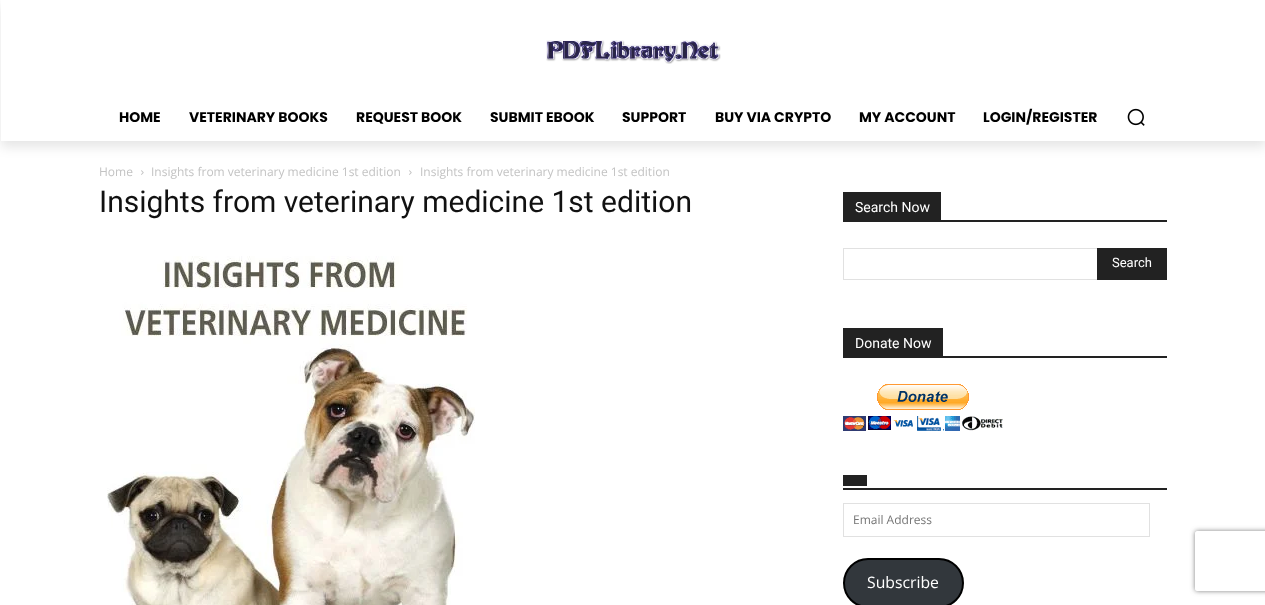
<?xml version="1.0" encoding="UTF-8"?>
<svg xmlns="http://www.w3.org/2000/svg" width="1265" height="605">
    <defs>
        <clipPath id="clip1"><path d="M 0 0 H 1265 V 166 H 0 Z M 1 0 H 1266 V 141 H 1 Z" clip-rule="evenodd"/></clipPath>
        <filter id="blur1" x="-50%" y="-200%" width="200%" height="500%"><feGaussianBlur stdDeviation="6"/></filter>
        <clipPath id="clip2"><path d="M 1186 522 H 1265 V 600 H 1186 Z M 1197 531 H 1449 C 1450 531 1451 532 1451 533 V 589 C 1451 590 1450 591 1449 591 H 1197 C 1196 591 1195 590 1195 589 V 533 C 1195 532 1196 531 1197 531 Z" clip-rule="evenodd"/></clipPath>
        <filter id="blur2" x="-50%" y="-200%" width="200%" height="500%"><feGaussianBlur stdDeviation="2.5"/></filter>
    </defs>
    <rect width="100%" height="100%" fill="#FFFFFF"/>
    <image x="546" y="40" width="175" height="24" href="img_01.png"/>
    <g clip-path="url(#clip1)">
        <rect x="1" y="6" width="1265" height="141" fill="#000000" fill-opacity="0.1" filter="url(#blur1)"/>
    </g>
    <text x="119" y="122" font-family="Poppins" font-size="14" font-weight="700" fill="#000000">HOME</text>
    <text x="189" y="122" font-family="Poppins" font-size="14" font-weight="700" fill="#000000">VETERINARY BOOKS</text>
    <text x="356" y="122" font-family="Poppins" font-size="14" font-weight="700" fill="#000000">REQUEST BOOK</text>
    <text x="490" y="122" font-family="Poppins" font-size="14" font-weight="700" fill="#000000">SUBMIT EBOOK</text>
    <text x="622" y="122" font-family="Poppins" font-size="14" font-weight="700" fill="#000000">SUPPORT</text>
    <text x="715" y="122" font-family="Poppins" font-size="14" font-weight="700" fill="#000000">BUY VIA CRYPTO</text>
    <text x="859" y="122" font-family="Poppins" font-size="14" font-weight="700" fill="#000000">MY ACCOUNT</text>
    <text x="983" y="122" font-family="Poppins" font-size="14" font-weight="700" fill="#000000">LOGIN/REGISTER</text>
    <image x="1127" y="108" width="18" height="18" href="img_02.png"/>
    <text x="99" y="176" font-family="Open Sans" font-size="12" fill="#C3C3C3">Home</text>
    <image x="141" y="170" width="3" height="5" href="img_03.png"/>
    <text x="151" y="176" font-family="Open Sans" font-size="12" fill="#C3C3C3">Insights from veterinary medicine 1st edition</text>
    <image x="409" y="170" width="3" height="5" href="img_03.png"/>
    <text x="420" y="176" font-family="Open Sans" font-size="12" fill="#C3C3C3">Insights from veterinary medicine 1st edition</text>
    <text x="99" y="212" font-family="Roboto" font-size="30" fill="#111111">Insights from veterinary medicine 1st edition</text>
    <image x="107" y="256" width="368" height="349" href="img_04.png"/>
    <rect x="843" y="220" width="324" height="2" fill="#222222"/>
    <rect x="843" y="192" width="98" height="28" fill="#222222"/>
    <text x="855" y="212" font-family="Roboto" font-size="14" fill="#FFFFFF">Search Now</text>
    <rect x="843" y="248" width="254" height="1" fill="#E1E1E1"/>
    <rect x="843" y="279" width="254" height="1" fill="#E1E1E1"/>
    <rect x="843" y="248" width="1" height="32" fill="#E1E1E1"/>
    <rect x="1097" y="248" width="70" height="32" fill="#222222"/>
    <text x="1112" y="267" font-family="Roboto" font-size="13" fill="#FFFFFF">Search</text>
    <rect x="843" y="356" width="324" height="2" fill="#222222"/>
    <rect x="843" y="328" width="100" height="28" fill="#222222"/>
    <text x="855" y="348" font-family="Roboto" font-size="14" fill="#FFFFFF">Donate Now</text>
    <image x="843" y="384" width="160" height="47" href="img_05.png"/>
    <rect x="843" y="488" width="324" height="2" fill="#222222"/>
    <rect x="843" y="475" width="24" height="11" fill="#222222"/>
    <rect x="843.5" y="503.5" width="306" height="33" fill="none" stroke="#E1E1E1"/>
    <text x="853" y="524" font-family="Open Sans" font-size="12" fill="#757575">Email Address</text>
    <rect x="844" y="559" width="119" height="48" rx="24" fill="#32373C" stroke="#000000" stroke-width="2"/>
    <text x="867" y="588" font-family="Open Sans" font-size="15.75" fill="#FFFFFF">Subscribe</text>
    <g clip-path="url(#clip2)">
        <rect x="1195" y="531" width="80" height="60" rx="2" fill="#808080" filter="url(#blur2)"/>
    </g>
</svg>
